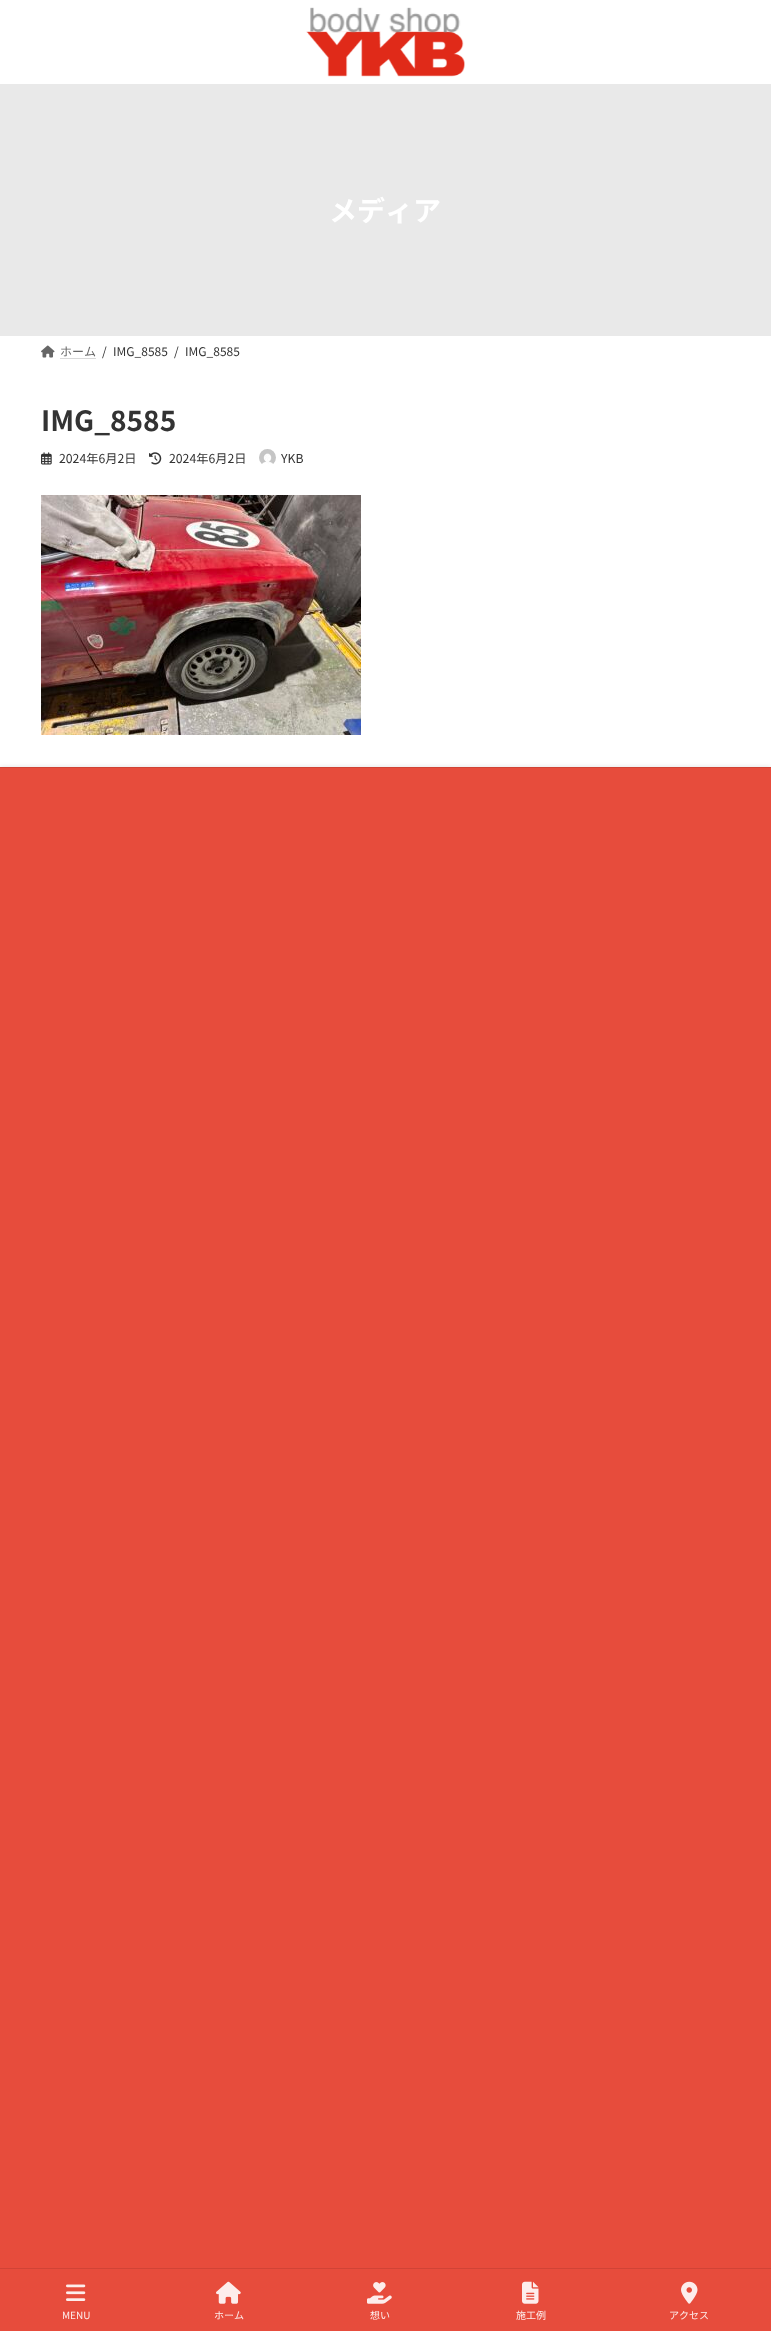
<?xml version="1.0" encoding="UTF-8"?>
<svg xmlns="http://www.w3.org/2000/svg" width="771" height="2331">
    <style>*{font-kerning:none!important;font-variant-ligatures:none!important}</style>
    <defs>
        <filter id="blur1" x="-50%" y="-200%" width="200%" height="500%"><feGaussianBlur stdDeviation="2.5"/></filter>
    </defs>
    <rect width="100%" height="100%" fill="#FFFFFF"/>
    <image x="306" y="7" width="159" height="70" href="img_01.png"/>
    <rect x="0" y="84" width="771" height="252" fill="#E9E9E9"/>
    <text x="329" y="221" font-family="Noto Sans JP" font-size="28" font-weight="700" fill="#FFFFFF">メディア</text>
    <image x="41" y="345" width="14" height="13" href="img_02.png"/>
    <text x="60" y="356" font-family="Noto Sans JP" font-size="12" fill="#666666">ホーム</text>
    <path d="M 60.5 358.5 H 96.5" fill="none" stroke="#B3B3B3" stroke-dasharray="1 1"/>
    <text x="102" y="356" font-family="Noto Sans JP" font-size="12" fill="#333333">/</text>
    <text x="113" y="356" font-family="Noto Sans JP" font-size="12" fill="#333333">IMG_8585</text>
    <text x="174" y="356" font-family="Noto Sans JP" font-size="12" fill="#333333">/</text>
    <text x="185" y="356" font-family="Noto Sans JP" font-size="12" fill="#333333">IMG_8585</text>
    <text x="41" y="431" font-family="Noto Sans JP" font-size="28" font-weight="700" fill="#333333">IMG_8585</text>
    <image x="41" y="452" width="11" height="13" href="img_03.png"/>
    <text x="59" y="463" font-family="Noto Sans JP" font-size="12.25" fill="#333333">2024年6月2日</text>
    <image x="149" y="452" width="13" height="13" href="img_04.png"/>
    <text x="169" y="463" font-family="Noto Sans JP" font-size="12.25" fill="#333333">2024年6月2日</text>
    <image x="259" y="449" width="17" height="15" href="img_05.png"/>
    <text x="281" y="463" font-family="Noto Sans JP" font-size="12.25" fill="#333333">YKB</text>
    <image x="41" y="495" width="320" height="240" href="img_06.png"/>
    <rect x="0" y="767" width="771" height="1564" fill="#000000" fill-opacity="0.12" filter="url(#blur1)"/>
    <rect x="0" y="768" width="771" height="1563" fill="#E74C3C"/>
    <rect x="0" y="767" width="771" height="1" fill="#D04436"/>
    <rect x="0" y="2268" width="771" height="1" fill="#D04436"/>
    <image x="66" y="2284" width="20" height="17" href="img_07.png"/>
    <text x="62" y="2319" font-family="Noto Sans JP" font-size="10" fill="#FDEDEC">MENU</text>
    <image x="216" y="2281" width="25" height="23" href="img_08.png"/>
    <text x="214" y="2319" font-family="Noto Sans JP" font-size="10" fill="#FDEDEC">ホーム</text>
    <image x="367" y="2282" width="25" height="22" href="img_09.png"/>
    <text x="370" y="2319" font-family="Noto Sans JP" font-size="10" fill="#FDEDEC">想い</text>
    <image x="522" y="2281" width="17" height="23" href="img_10.png"/>
    <text x="516" y="2319" font-family="Noto Sans JP" font-size="10" fill="#FDEDEC">施工例</text>
    <image x="681" y="2281" width="17" height="23" href="img_11.png"/>
    <text x="669" y="2319" font-family="Noto Sans JP" font-size="10" fill="#FDEDEC">アクセス</text>
</svg>
